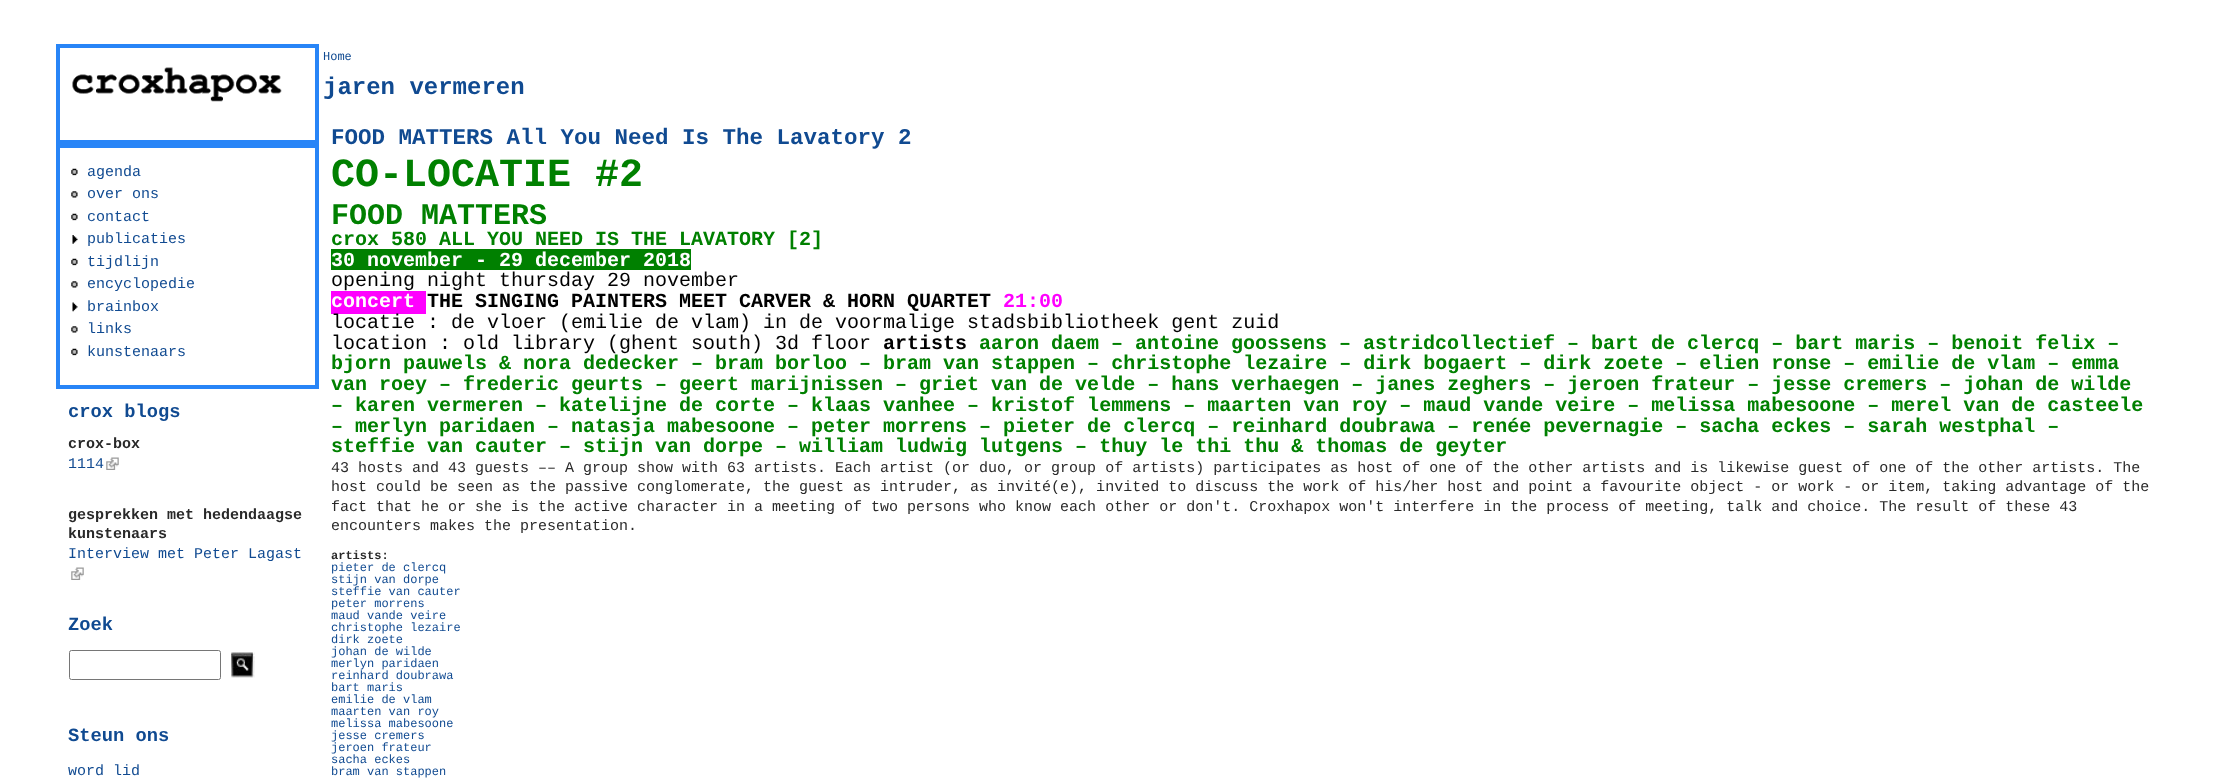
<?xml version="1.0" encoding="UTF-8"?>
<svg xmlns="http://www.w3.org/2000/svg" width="2230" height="782">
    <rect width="100%" height="100%" fill="#FFFFFF"/>
    <rect x="58" y="46" width="259" height="96" fill="none" stroke="#2885F7" stroke-width="4"/>
    <image x="72" y="67" width="210" height="35" href="img_01.png"/>
    <rect x="58" y="146" width="259" height="241" fill="none" stroke="#2885F7" stroke-width="4"/>
    <image x="71" y="168" width="7" height="8" href="img_02.png"/>
    <text x="87" y="176" font-family="Liberation Mono" font-size="15" fill="#104A91">agenda</text>
    <image x="71" y="191" width="7" height="7" href="img_03.png"/>
    <text x="87" y="198" font-family="Liberation Mono" font-size="15" fill="#104A91">over ons</text>
    <image x="71" y="213" width="7" height="8" href="img_02.png"/>
    <text x="87" y="221" font-family="Liberation Mono" font-size="15" fill="#104A91">contact</text>
    <image x="72" y="235" width="6" height="9" href="img_04.png"/>
    <text x="87" y="243" font-family="Liberation Mono" font-size="15" fill="#104A91">publicaties</text>
    <image x="71" y="258" width="7" height="8" href="img_02.png"/>
    <text x="87" y="266" font-family="Liberation Mono" font-size="15" fill="#104A91">tijdlijn</text>
    <image x="71" y="281" width="7" height="7" href="img_03.png"/>
    <text x="87" y="288" font-family="Liberation Mono" font-size="15" fill="#104A91">encyclopedie</text>
    <image x="72" y="302" width="6" height="10" href="img_05.png"/>
    <text x="87" y="311" font-family="Liberation Mono" font-size="15" fill="#104A91">brainbox</text>
    <image x="71" y="326" width="7" height="7" href="img_03.png"/>
    <text x="87" y="333" font-family="Liberation Mono" font-size="15" fill="#104A91">links</text>
    <image x="71" y="348" width="7" height="8" href="img_02.png"/>
    <text x="87" y="356" font-family="Liberation Mono" font-size="15" fill="#104A91">kunstenaars</text>
    <text x="68" y="417" font-family="Liberation Mono" font-size="18.75" font-weight="700" fill="#104A91">crox blogs</text>
    <text x="68" y="448" font-family="Liberation Mono" font-size="15" font-weight="700" fill="#292929">crox-box</text>
    <text x="68" y="468" font-family="Liberation Mono" font-size="15" fill="#104A91">1114</text>
    <image x="106" y="457" width="13" height="13" href="img_06.png"/>
    <text font-family="Liberation Mono" font-size="15" font-weight="700" fill="#292929">
        <tspan x="68" y="519">gesprekken met hedendaagse</tspan>
        <tspan x="68" y="538">kunstenaars</tspan>
    </text>
    <text x="68" y="558" font-family="Liberation Mono" font-size="15" fill="#104A91">Interview met Peter Lagast</text>
    <image x="71" y="567" width="13" height="13" href="img_06.png"/>
    <text x="68" y="630" font-family="Liberation Mono" font-size="18.75" font-weight="700" fill="#104A91">Zoek</text>
    <rect x="69.5" y="650.5" width="151" height="29" rx="2" fill="none" stroke="#767676"/>
    <image x="231" y="652" width="24" height="26" href="img_07.png"/>
    <text x="68" y="741" font-family="Liberation Mono" font-size="18.75" font-weight="700" fill="#104A91">Steun ons</text>
    <text x="68" y="775" font-family="Liberation Mono" font-size="15" fill="#104A91">word lid</text>
    <text x="323" y="60" font-family="Liberation Mono" font-size="12" fill="#104A91">Home</text>
    <text x="323" y="94" font-family="Liberation Mono" font-size="24" font-weight="700" fill="#104A91">jaren vermeren</text>
    <text x="331" y="144" font-family="Liberation Mono" font-size="22.5" font-weight="700" fill="#104A91">FOOD MATTERS All You Need Is The Lavatory 2</text>
    <text x="331" y="186" font-family="Liberation Mono" font-size="40" font-weight="700" fill="#008000">CO-LOCATIE #2</text>
    <text x="331" y="224" font-family="Liberation Mono" font-size="30" font-weight="700" fill="#008000">FOOD MATTERS</text>
    <text x="331" y="245" font-family="Liberation Mono" font-size="20" font-weight="700" fill="#008000">crox 580 ALL YOU NEED IS THE LAVATORY [2]</text>
    <rect x="331" y="249" width="360" height="21" fill="#008000"/>
    <text x="331" y="266" font-family="Liberation Mono" font-size="20" font-weight="700" fill="#FFFFFF">30 november - 29 december 2018</text>
    <text x="331" y="286" font-family="Liberation Mono" font-size="20" fill="#000000">opening night thursday 29 november</text>
    <rect x="331" y="291" width="95" height="23" fill="#FF00FF"/>
    <text x="331" y="307" font-family="Liberation Mono" font-size="20" font-weight="700" fill="#FFFFFF">concert</text>
    <text x="427" y="307" font-family="Liberation Mono" font-size="20" font-weight="700" fill="#000000">THE SINGING PAINTERS MEET CARVER &amp; HORN QUARTET</text>
    <text x="1003" y="307" font-family="Liberation Mono" font-size="20" font-weight="700" fill="#FF00FF">21:00</text>
    <text font-family="Liberation Mono" font-size="20" fill="#000000">
        <tspan x="331" y="328">locatie : de vloer (emilie de vlam) in de voormalige stadsbibliotheek gent zuid</tspan>
        <tspan x="331" y="349">location : old library (ghent south) 3d floor</tspan>
    </text>
    <text x="883" y="349" font-family="Liberation Mono" font-size="20" font-weight="700" fill="#000000">artists</text>
    <text x="979" y="349" font-family="Liberation Mono" font-size="20" font-weight="700" fill="#008000">aaron daem – antoine goossens – astridcollectief – bart de clercq – bart maris – benoit felix –</text>
    <text font-family="Liberation Mono" font-size="20" font-weight="700" fill="#008000">
        <tspan x="331" y="369">bjorn pauwels &amp; nora dedecker – bram borloo – bram van stappen – christophe lezaire – dirk bogaert – dirk zoete – elien ronse – emilie de vlam – emma</tspan>
        <tspan x="331" y="390">van roey – frederic geurts – geert marijnissen – griet van de velde – hans verhaegen – janes zeghers – jeroen frateur – jesse cremers – johan de wilde</tspan>
        <tspan x="331" y="411">– karen vermeren – katelijne de corte – klaas vanhee – kristof lemmens – maarten van roy – maud vande veire – melissa mabesoone – merel van de casteele</tspan>
        <tspan x="331" y="432">– merlyn paridaen – natasja mabesoone – peter morrens – pieter de clercq – reinhard doubrawa – renée pevernagie – sacha eckes – sarah westphal –</tspan>
        <tspan x="331" y="452">steffie van cauter – stijn van dorpe – william ludwig lutgens – thuy le thi thu &amp; thomas de geyter</tspan>
    </text>
    <text font-family="Liberation Mono" font-size="15" fill="#292929">
        <tspan x="331" y="472">43 hosts and 43 guests –– A group show with 63 artists. Each artist (or duo, or group of artists) participates as host of one of the other artists and is likewise guest of one of the other artists. The</tspan>
        <tspan x="331" y="491">host could be seen as the passive conglomerate, the guest as intruder, as invité(e), invited to discuss the work of his/her host and point a favourite object - or work - or item, taking advantage of the</tspan>
        <tspan x="331" y="511">fact that he or she is the active character in a meeting of two persons who know each other or don't. Croxhapox won't interfere in the process of meeting, talk and choice. The result of these 43</tspan>
        <tspan x="331" y="530">encounters makes the presentation.</tspan>
    </text>
    <text x="331" y="559" font-family="Liberation Mono" font-size="12" font-weight="700" fill="#292929">artists:</text>
    <text font-family="Liberation Mono" font-size="12" fill="#104A91">
        <tspan x="331" y="571">pieter de clercq</tspan>
        <tspan x="331" y="583">stijn van dorpe</tspan>
        <tspan x="331" y="595">steffie van cauter</tspan>
        <tspan x="331" y="607">peter morrens</tspan>
        <tspan x="331" y="619">maud vande veire</tspan>
        <tspan x="331" y="631">christophe lezaire</tspan>
        <tspan x="331" y="643">dirk zoete</tspan>
        <tspan x="331" y="655">johan de wilde</tspan>
        <tspan x="331" y="667">merlyn paridaen</tspan>
        <tspan x="331" y="679">reinhard doubrawa</tspan>
        <tspan x="331" y="691">bart maris</tspan>
        <tspan x="331" y="703">emilie de vlam</tspan>
        <tspan x="331" y="715">maarten van roy</tspan>
        <tspan x="331" y="727">melissa mabesoone</tspan>
        <tspan x="331" y="739">jesse cremers</tspan>
        <tspan x="331" y="751">jeroen frateur</tspan>
        <tspan x="331" y="763">sacha eckes</tspan>
        <tspan x="331" y="775">bram van stappen</tspan>
    </text>
</svg>
